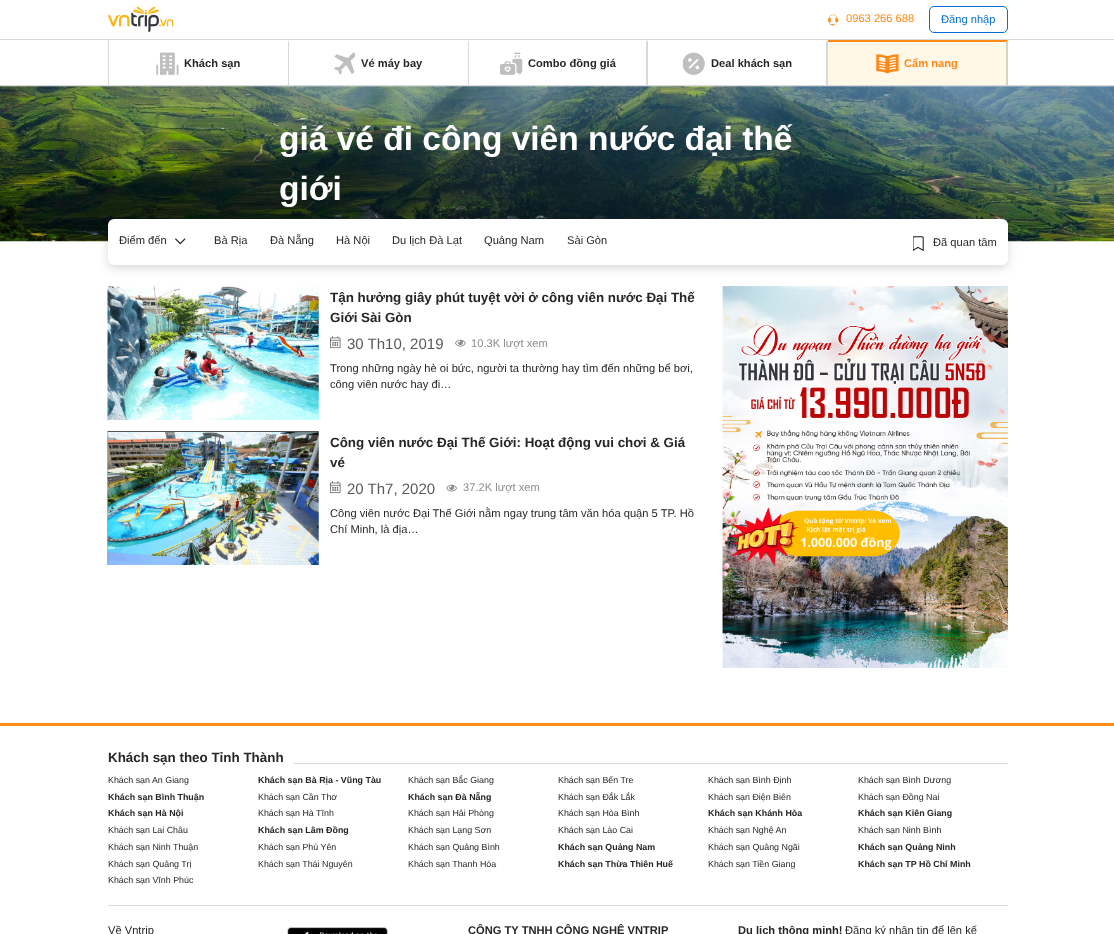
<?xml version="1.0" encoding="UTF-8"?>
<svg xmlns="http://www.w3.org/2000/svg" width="1114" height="934">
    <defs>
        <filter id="blur1" x="-50%" y="-200%" width="200%" height="500%"><feGaussianBlur stdDeviation="5"/></filter>
    </defs>
    <rect width="100%" height="100%" fill="#FFFFFF"/>
    <rect x="0" y="39" width="1114" height="1" fill="#D9D9D9"/>
    <image x="108" y="6" width="67" height="27" href="img_01.png"/>
    <image x="828" y="14" width="11" height="12" href="img_02.png"/>
    <text x="846" y="22" font-family="Liberation Sans" font-size="11.15" fill="#FF8917">0963 266 688</text>
    <rect x="929.5" y="6.5" width="78" height="26" rx="4.5" fill="none" stroke="#096DD9"/>
    <text x="941" y="23" font-family="Liberation Sans" font-size="11.15" fill="#096DD9">Đăng nhập</text>
    <rect x="0" y="85" width="1114" height="1" fill="#D9D9D9"/>
    <rect x="108" y="40" width="1" height="45" fill="#D9D9D9"/>
    <path d="M 289 40 V 85 H 288 V 42 Z" fill="#D9D9D9"/>
    <image x="156" y="52" width="23" height="23" href="img_03.png"/>
    <text x="184" y="67" font-family="Liberation Sans" font-size="11.15" font-weight="700" fill="#262626">Khách sạn</text>
    <path d="M 469 40 V 85 H 468 V 42 Z" fill="#D9D9D9"/>
    <image x="334" y="52" width="21" height="23" href="img_04.png"/>
    <text x="361" y="67" font-family="Liberation Sans" font-size="11.15" font-weight="700" fill="#262626">Vé máy bay</text>
    <path d="M 648 40 V 85 H 646 V 42 Z" fill="#D9D9D9"/>
    <image x="500" y="52" width="23" height="23" href="img_05.png"/>
    <text x="528" y="67" font-family="Liberation Sans" font-size="11.15" font-weight="700" fill="#262626">Combo đồng giá</text>
    <path d="M 828 40 V 85 H 826 V 42 Z" fill="#D9D9D9"/>
    <image x="683" y="52" width="22" height="23" href="img_06.png"/>
    <text x="711" y="67" font-family="Liberation Sans" font-size="11.15" font-weight="700" fill="#262626">Deal khách sạn</text>
    <rect x="828" y="40" width="180" height="45" fill="#FFF8E7"/>
    <path d="M 828 40 H 1008 L 1006 42 H 828 Z" fill="#FF8917"/>
    <path d="M 1008 40 V 85 H 1006 V 42 Z" fill="#000000" fill-opacity="0.15"/>
    <image x="876" y="54" width="23" height="20" href="img_07.png"/>
    <text x="904" y="67" font-family="Liberation Sans" font-size="11.15" font-weight="700" fill="#FF8917">Cẩm nang</text>
    <image x="0" y="86" width="1114" height="156" href="img_08.png"/>
    <text font-family="Liberation Sans" font-size="33.5" font-weight="700" fill="#FFFFFF">
        <tspan x="279" y="150">giá vé đi công viên nước đại thế</tspan>
        <tspan x="279" y="200">giới</tspan>
    </text>
    <rect x="108" y="221" width="900" height="47" rx="6" fill="#000000" fill-opacity="0.15" filter="url(#blur1)"/>
    <rect x="108" y="219" width="900" height="46" rx="6" fill="#FFFFFF"/>
    <text x="119" y="244" font-family="Liberation Sans" font-size="11.15" fill="#262626">Điểm đến</text>
    <image x="175" y="238" width="11" height="7" href="img_09.png"/>
    <text x="214" y="244" font-family="Liberation Sans" font-size="11.15" fill="#262626">Bà Rịa</text>
    <text x="270" y="244" font-family="Liberation Sans" font-size="11.15" fill="#262626">Đà Nẵng</text>
    <text x="336" y="244" font-family="Liberation Sans" font-size="11.15" fill="#262626">Hà Nội</text>
    <text x="392" y="244" font-family="Liberation Sans" font-size="11.15" fill="#262626">Du lịch Đà Lạt</text>
    <text x="484" y="244" font-family="Liberation Sans" font-size="11.15" fill="#262626">Quảng Nam</text>
    <text x="567" y="244" font-family="Liberation Sans" font-size="11.15" fill="#262626">Sài Gòn</text>
    <image x="913" y="236" width="11" height="16" href="img_10.png"/>
    <text x="933" y="246" font-family="Liberation Sans" font-size="11.15" fill="#262626">Đã quan tâm</text>
    <image x="107" y="286" width="212" height="134" href="img_11.png"/>
    <text font-family="Liberation Sans" font-size="13.4" font-weight="700" fill="#262626">
        <tspan x="330" y="302">Tận hưởng giây phút tuyệt vời ở công viên nước Đại Thế</tspan>
        <tspan x="330" y="322">Giới Sài Gòn</tspan>
    </text>
    <image x="330" y="336" width="11" height="13" href="img_12.png"/>
    <text x="347" y="349" font-family="Liberation Sans" font-size="15" fill="#595959">30 Th10, 2019</text>
    <image x="455" y="339" width="11" height="8" href="img_13.png"/>
    <text x="471" y="347" font-family="Liberation Sans" font-size="11.15" fill="#8C8C8C">10.3K lượt xem</text>
    <text font-family="Liberation Sans" font-size="11.15" fill="#262626">
        <tspan x="330" y="372">Trong những ngày hè oi bức, người ta thường hay tìm đến những bể bơi,</tspan>
        <tspan x="330" y="388">công viên nước hay đi…</tspan>
    </text>
    <image x="107" y="431" width="212" height="134" href="img_14.png"/>
    <text font-family="Liberation Sans" font-size="13.4" font-weight="700" fill="#262626">
        <tspan x="330" y="447">Công viên nước Đại Thế Giới: Hoạt động vui chơi &amp; Giá</tspan>
        <tspan x="330" y="467">vé</tspan>
    </text>
    <image x="330" y="481" width="11" height="13" href="img_12.png"/>
    <text x="347" y="494" font-family="Liberation Sans" font-size="15" fill="#595959">20 Th7, 2020</text>
    <image x="446" y="484" width="11" height="8" href="img_15.png"/>
    <text x="463" y="491" font-family="Liberation Sans" font-size="11.15" fill="#8C8C8C">37.2K lượt xem</text>
    <text font-family="Liberation Sans" font-size="11.15" fill="#262626">
        <tspan x="330" y="517">Công viên nước Đại Thế Giới nằm ngay trung tâm văn hóa quận 5 TP. Hồ</tspan>
        <tspan x="330" y="533">Chí Minh, là địa…</tspan>
    </text>
    <image x="722" y="286" width="286" height="382" href="img_16.png"/>
    <rect x="0" y="723" width="1114" height="3" fill="#FD8C13"/>
    <rect x="108" y="905" width="900" height="1" fill="#D9D9D9"/>
    <rect x="294" y="763" width="714" height="1" fill="#D9D9D9"/>
    <text x="108" y="762" font-family="Liberation Sans" font-size="13.4" font-weight="700" fill="#262626">Khách sạn theo Tỉnh Thành</text>
    <text x="108" y="783" font-family="Liberation Sans" font-size="8.9" fill="#262626">Khách sạn An Giang</text>
    <text x="258" y="783" font-family="Liberation Sans" font-size="8.9" font-weight="700" fill="#262626">Khách sạn Bà Rịa - Vũng Tàu</text>
    <text x="408" y="783" font-family="Liberation Sans" font-size="8.9" fill="#262626">Khách sạn Bắc Giang</text>
    <text x="558" y="783" font-family="Liberation Sans" font-size="8.9" fill="#262626">Khách sạn Bến Tre</text>
    <text x="708" y="783" font-family="Liberation Sans" font-size="8.9" fill="#262626">Khách sạn Bình Định</text>
    <text x="858" y="783" font-family="Liberation Sans" font-size="8.9" fill="#262626">Khách sạn Bình Dương</text>
    <text x="108" y="800" font-family="Liberation Sans" font-size="8.9" font-weight="700" fill="#262626">Khách sạn Bình Thuận</text>
    <text x="258" y="800" font-family="Liberation Sans" font-size="8.9" fill="#262626">Khách sạn Cần Thơ</text>
    <text x="408" y="800" font-family="Liberation Sans" font-size="8.9" font-weight="700" fill="#262626">Khách sạn Đà Nẵng</text>
    <text x="558" y="800" font-family="Liberation Sans" font-size="8.9" fill="#262626">Khách sạn Đắk Lắk</text>
    <text x="708" y="800" font-family="Liberation Sans" font-size="8.9" fill="#262626">Khách sạn Điện Biên</text>
    <text x="858" y="800" font-family="Liberation Sans" font-size="8.9" fill="#262626">Khách sạn Đồng Nai</text>
    <text x="108" y="816" font-family="Liberation Sans" font-size="8.9" font-weight="700" fill="#262626">Khách sạn Hà Nội</text>
    <text x="258" y="816" font-family="Liberation Sans" font-size="8.9" fill="#262626">Khách sạn Hà Tĩnh</text>
    <text x="408" y="816" font-family="Liberation Sans" font-size="8.9" fill="#262626">Khách sạn Hải Phòng</text>
    <text x="558" y="816" font-family="Liberation Sans" font-size="8.9" fill="#262626">Khách sạn Hòa Bình</text>
    <text x="708" y="816" font-family="Liberation Sans" font-size="8.9" font-weight="700" fill="#262626">Khách sạn Khánh Hòa</text>
    <text x="858" y="816" font-family="Liberation Sans" font-size="8.9" font-weight="700" fill="#262626">Khách sạn Kiên Giang</text>
    <text x="108" y="833" font-family="Liberation Sans" font-size="8.9" fill="#262626">Khách sạn Lai Châu</text>
    <text x="258" y="833" font-family="Liberation Sans" font-size="8.9" font-weight="700" fill="#262626">Khách sạn Lâm Đồng</text>
    <text x="408" y="833" font-family="Liberation Sans" font-size="8.9" fill="#262626">Khách sạn Lạng Sơn</text>
    <text x="558" y="833" font-family="Liberation Sans" font-size="8.9" fill="#262626">Khách sạn Lào Cai</text>
    <text x="708" y="833" font-family="Liberation Sans" font-size="8.9" fill="#262626">Khách sạn Nghệ An</text>
    <text x="858" y="833" font-family="Liberation Sans" font-size="8.9" fill="#262626">Khách sạn Ninh Bình</text>
    <text x="108" y="850" font-family="Liberation Sans" font-size="8.9" fill="#262626">Khách sạn Ninh Thuận</text>
    <text x="258" y="850" font-family="Liberation Sans" font-size="8.9" fill="#262626">Khách sạn Phú Yên</text>
    <text x="408" y="850" font-family="Liberation Sans" font-size="8.9" fill="#262626">Khách sạn Quảng Bình</text>
    <text x="558" y="850" font-family="Liberation Sans" font-size="8.9" font-weight="700" fill="#262626">Khách sạn Quảng Nam</text>
    <text x="708" y="850" font-family="Liberation Sans" font-size="8.9" fill="#262626">Khách sạn Quảng Ngãi</text>
    <text x="858" y="850" font-family="Liberation Sans" font-size="8.9" font-weight="700" fill="#262626">Khách sạn Quảng Ninh</text>
    <text x="108" y="867" font-family="Liberation Sans" font-size="8.9" fill="#262626">Khách sạn Quảng Trị</text>
    <text x="258" y="867" font-family="Liberation Sans" font-size="8.9" fill="#262626">Khách sạn Thái Nguyên</text>
    <text x="408" y="867" font-family="Liberation Sans" font-size="8.9" fill="#262626">Khách sạn Thanh Hóa</text>
    <text x="558" y="867" font-family="Liberation Sans" font-size="8.9" font-weight="700" fill="#262626">Khách sạn Thừa Thiên Huế</text>
    <text x="708" y="867" font-family="Liberation Sans" font-size="8.9" fill="#262626">Khách sạn Tiền Giang</text>
    <text x="858" y="867" font-family="Liberation Sans" font-size="8.9" font-weight="700" fill="#262626">Khách sạn TP Hồ Chí Minh</text>
    <text x="108" y="883" font-family="Liberation Sans" font-size="8.9" fill="#262626">Khách sạn Vĩnh Phúc</text>
    <text x="108" y="934" font-family="Liberation Sans" font-size="11.15" fill="#262626">Về Vntrip</text>
    <image x="287" y="927" width="101" height="7" href="img_17.png"/>
    <text x="468" y="934" font-family="Liberation Sans" font-size="11.15" font-weight="700" fill="#262626">CÔNG TY TNHH CÔNG NGHỆ VNTRIP</text>
    <text x="738" y="934" font-family="Liberation Sans" font-size="11.15" font-weight="700" fill="#262626">Du lịch thông minh!</text>
    <text x="845" y="934" font-family="Liberation Sans" font-size="11.15" fill="#262626">Đăng ký nhận tin để lên kế</text>
</svg>
